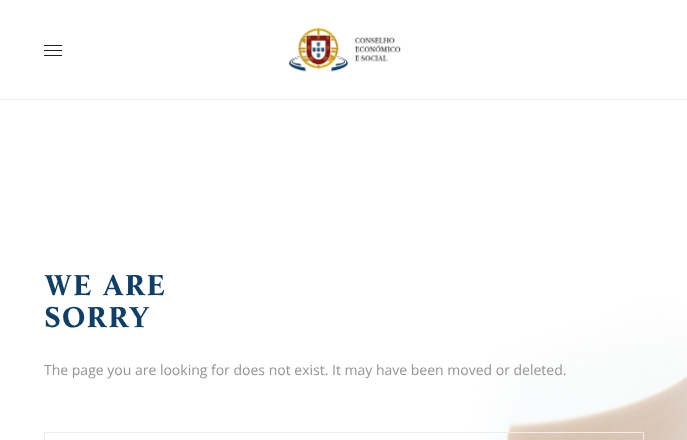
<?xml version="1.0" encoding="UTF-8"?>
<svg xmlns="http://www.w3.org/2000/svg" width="687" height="440">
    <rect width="100%" height="100%" fill="#FFFFFF"/>
    <image x="0" y="0" width="687" height="440" href="img_02.png"/>
    <rect x="0" y="99" width="687" height="1" fill="#EDEDED"/>
    <rect x="44" y="45" width="18" height="1" fill="#211F1F"/>
    <rect x="44" y="50" width="18" height="1" fill="#211F1F"/>
    <rect x="44" y="55" width="18" height="1" fill="#211F1F"/>
    <image x="288" y="27" width="113" height="45" href="img_01.png"/>
    <text font-family="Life" font-size="28" font-weight="700" letter-spacing="1.5" fill="#0F3F67">
        <tspan x="44" y="295">WE ARE</tspan>
        <tspan x="44" y="327">SORRY</tspan>
    </text>
    <text x="44" y="375" font-family="Open Sans" font-size="14" fill="#959494">The page you are looking for does not exist. It may have been moved or deleted.</text>
    <rect x="44.5" y="432.5" width="599" height="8" fill="none" stroke="#EDEDED"/>
</svg>
